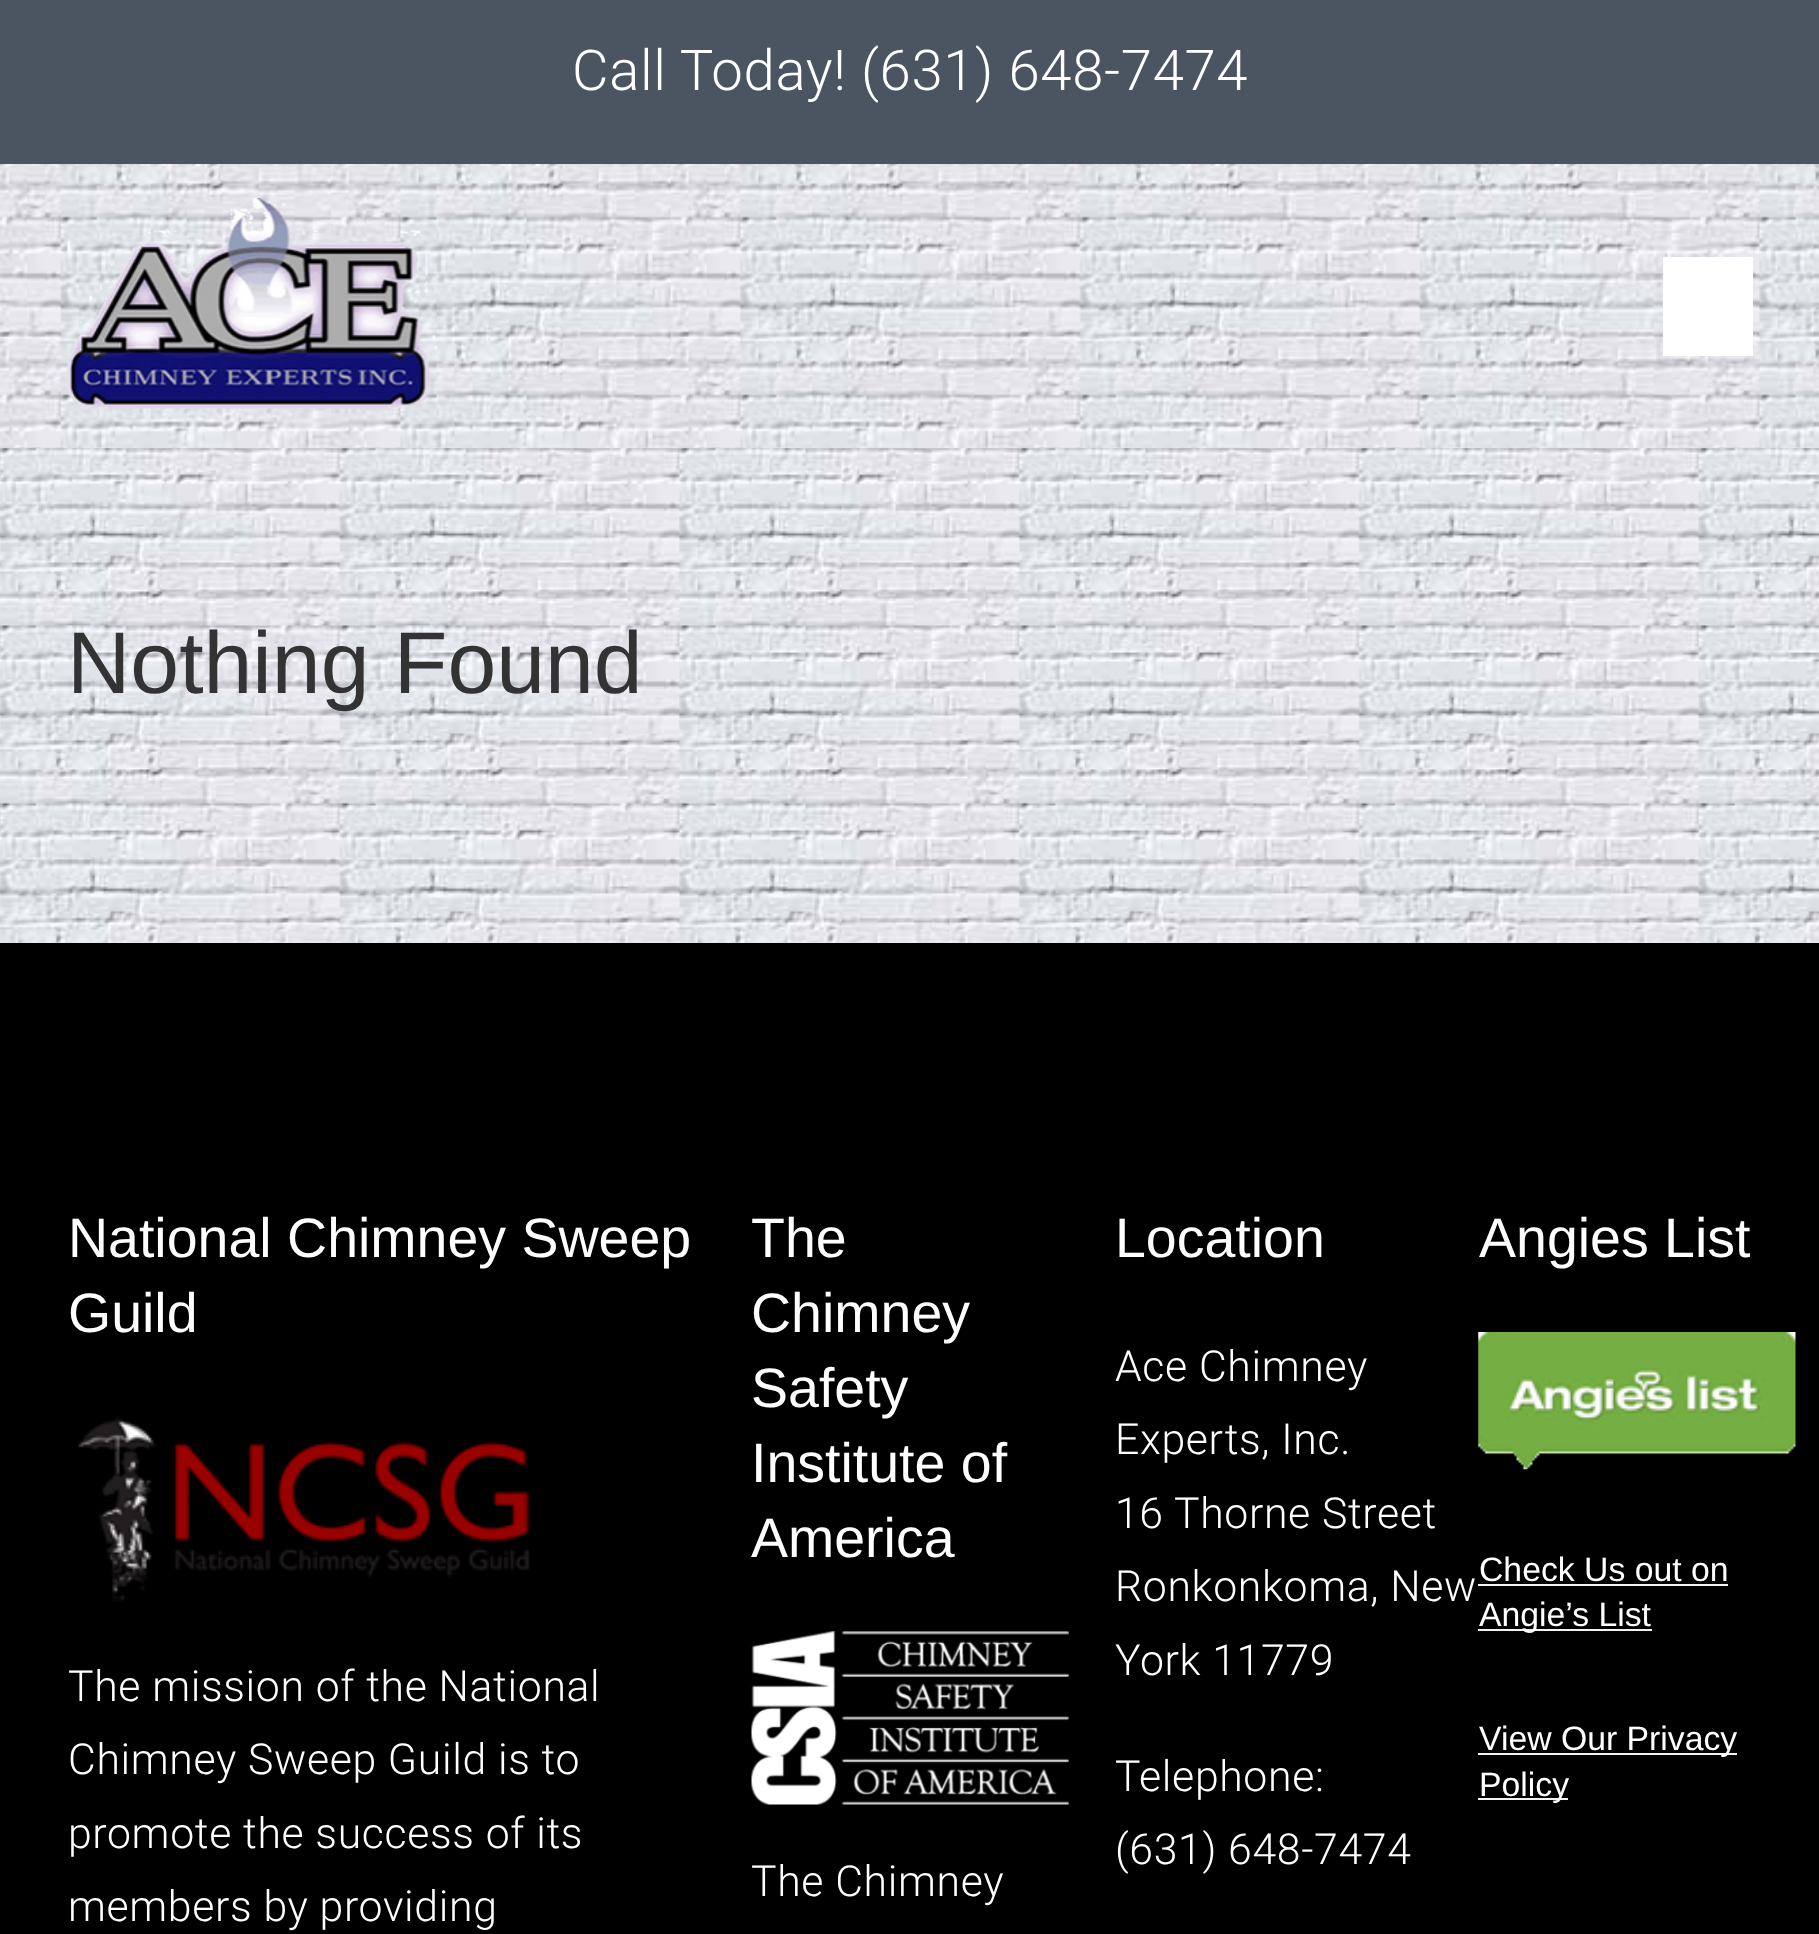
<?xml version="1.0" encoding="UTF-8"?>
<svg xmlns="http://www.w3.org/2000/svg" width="1819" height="1934">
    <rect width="100%" height="100%" fill="#FFFFFF"/>
    <image x="0" y="447" width="1819" height="496" href="img_01.png"/>
    <rect x="0" y="0" width="1819" height="164" fill="#4B5561"/>
    <text x="572" y="90" font-family="Roboto" font-size="56.25" font-weight="300" letter-spacing="0.65" fill="#FFFFFF">Call Today! (631) 648-7474</text>
    <image x="0" y="447" width="1819" height="496" href="img_04.png"/>
    <image x="0" y="164" width="1819" height="285" href="img_02.png"/>
    <image x="67" y="198" width="370" height="211" href="img_03.png"/>
    <rect x="1663" y="257" width="90" height="99" fill="#FFFFFF"/>
    <text x="67" y="693" font-family="Liberation Sans" font-size="87.75" fill="#333333">Nothing Found</text>
    <rect x="0" y="943" width="1819" height="991" fill="#000000"/>
    <text font-family="Liberation Sans" font-size="55.5" fill="#FFFFFF">
        <tspan x="68" y="1257">National Chimney Sweep</tspan>
        <tspan x="68" y="1332">Guild</tspan>
    </text>
    <image x="78" y="1416" width="452" height="186" href="img_05.png"/>
    <text font-family="Roboto" font-size="42.75" font-weight="300" letter-spacing="0.65" fill="#FFFFFF">
        <tspan x="68" y="1701">The mission of the National</tspan>
        <tspan x="68" y="1774">Chimney Sweep Guild is to</tspan>
        <tspan x="68" y="1848">promote the success of its</tspan>
        <tspan x="68" y="1921">members by providing</tspan>
    </text>
    <text font-family="Liberation Sans" font-size="55.5" fill="#FFFFFF">
        <tspan x="751" y="1257">The</tspan>
        <tspan x="751" y="1332">Chimney</tspan>
        <tspan x="751" y="1407">Safety</tspan>
        <tspan x="751" y="1482">Institute of</tspan>
        <tspan x="751" y="1557">America</tspan>
    </text>
    <image x="751" y="1631" width="318" height="174" href="img_06.png"/>
    <text x="751" y="1896" font-family="Roboto" font-size="42.75" font-weight="300" letter-spacing="0.65" fill="#FFFFFF">The Chimney</text>
    <text x="1115" y="1257" font-family="Liberation Sans" font-size="55.5" fill="#FFFFFF">Location</text>
    <text font-family="Roboto" font-size="42.75" font-weight="300" letter-spacing="0.65" fill="#FFFFFF">
        <tspan x="1115" y="1381">Ace Chimney</tspan>
        <tspan x="1115" y="1454">Experts, Inc.</tspan>
        <tspan x="1115" y="1528">16 Thorne Street</tspan>
        <tspan x="1115" y="1601">Ronkonkoma, New</tspan>
        <tspan x="1115" y="1675">York 11779</tspan>
    </text>
    <text font-family="Roboto" font-size="42.75" font-weight="300" letter-spacing="0.65" fill="#FFFFFF">
        <tspan x="1115" y="1791">Telephone:</tspan>
        <tspan x="1115" y="1864">(631) 648-7474</tspan>
    </text>
    <text x="1479" y="1257" font-family="Liberation Sans" font-size="55.5" fill="#FFFFFF">Angies List</text>
    <image x="1478" y="1332" width="318" height="138" href="img_07.png"/>
    <text x="1479" y="1581" font-family="Liberation Sans" font-size="33.75" fill="#FFFFFF">Check Us out on</text>
    <rect x="1478" y="1584" width="250" height="2" fill="#F2F3F5"/>
    <rect x="1478" y="1629" width="174" height="2" fill="#F2F3F5"/>
    <text x="1479" y="1626" font-family="Liberation Sans" font-size="33.75" fill="#FFFFFF">Angie’s List</text>
    <rect x="1478" y="1753" width="259" height="2" fill="#F2F3F5"/>
    <text x="1479" y="1750" font-family="Liberation Sans" font-size="33.75" fill="#FFFFFF">View Our Privacy</text>
    <rect x="1478" y="1798" width="90" height="2" fill="#F2F3F5"/>
    <text x="1479" y="1796" font-family="Liberation Sans" font-size="33.75" fill="#FFFFFF">Policy</text>
</svg>
